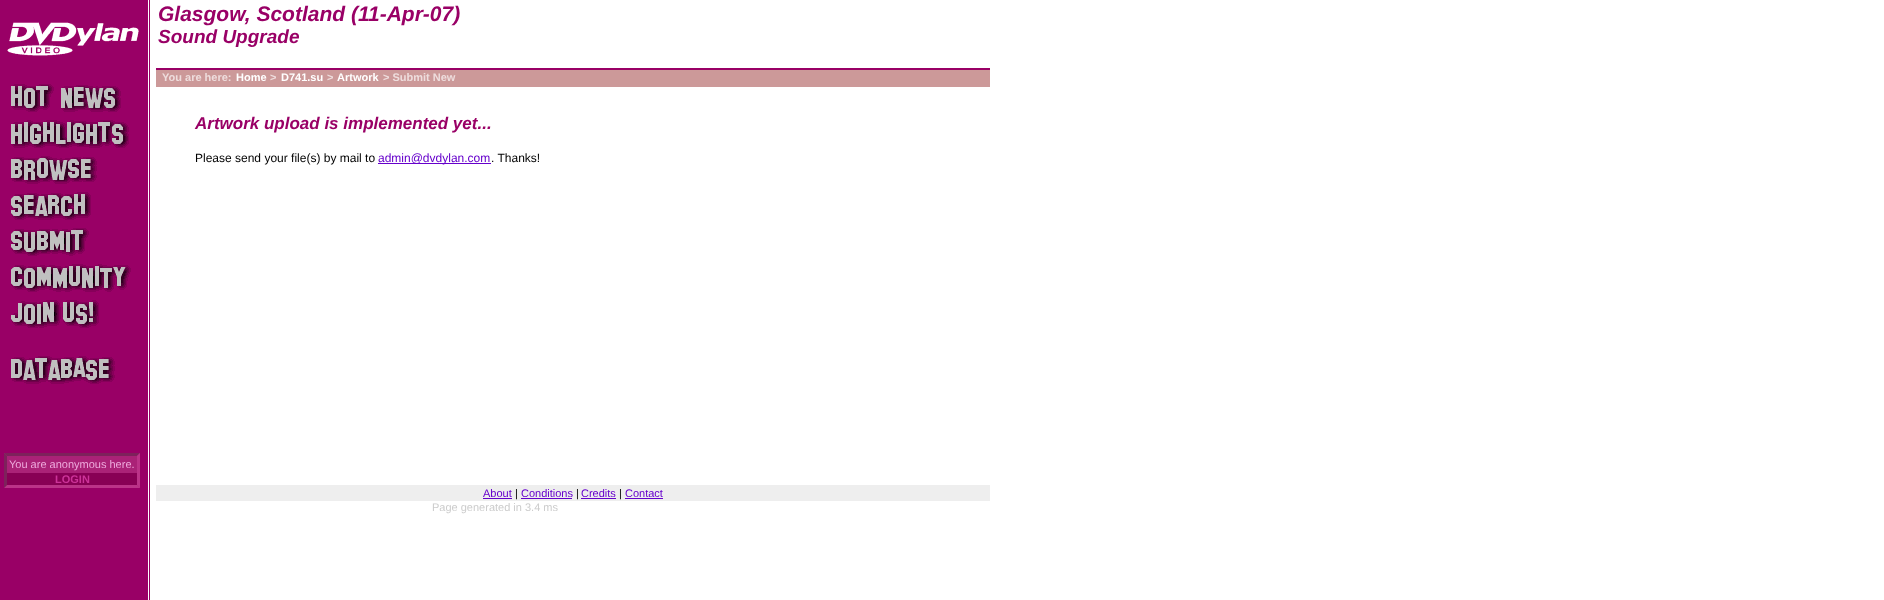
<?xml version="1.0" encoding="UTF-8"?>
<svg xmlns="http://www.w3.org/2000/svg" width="1884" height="600">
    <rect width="100%" height="100%" fill="#FFFFFF"/>
    <image x="0" y="0" width="150" height="600" href="img_01.png"/>
    <image x="7" y="22" width="132" height="34" href="img_02.png"/>
    <rect x="156" y="68" width="834" height="2" fill="#990066"/>
    <text x="158" y="21" font-family="Liberation Sans" font-size="21" font-weight="700" font-style="italic" fill="#990066">Glasgow, Scotland (11-Apr-07)</text>
    <text x="158" y="43" font-family="Liberation Sans" font-size="19" font-weight="700" font-style="italic" fill="#990066">Sound Upgrade</text>
    <rect x="156" y="70" width="834" height="17" fill="#CC9999"/>
    <text x="162" y="81" font-family="Liberation Sans" font-size="11" font-weight="700" fill="#EEDDDD">You are here:</text>
    <text x="236" y="81" font-family="Liberation Sans" font-size="11" font-weight="700" fill="#FFFFFF">Home</text>
    <text x="270" y="81" font-family="Liberation Sans" font-size="11" font-weight="700" fill="#EEDDDD">&gt;</text>
    <text x="281" y="81" font-family="Liberation Sans" font-size="11" font-weight="700" fill="#FFFFFF">D741.su</text>
    <text x="327" y="81" font-family="Liberation Sans" font-size="11" font-weight="700" fill="#EEDDDD">&gt;</text>
    <text x="337" y="81" font-family="Liberation Sans" font-size="11" font-weight="700" fill="#FFFFFF">Artwork</text>
    <text x="383" y="81" font-family="Liberation Sans" font-size="11" font-weight="700" fill="#EEDDDD">&gt; Submit New</text>
    <image x="11" y="84" width="110" height="28" href="img_03.png"/>
    <image x="11" y="120" width="118" height="28" href="img_04.png"/>
    <image x="11" y="156" width="86" height="28" href="img_05.png"/>
    <image x="11" y="192" width="80" height="28" href="img_06.png"/>
    <image x="11" y="228" width="78" height="28" href="img_07.png"/>
    <image x="11" y="264" width="120" height="28" href="img_08.png"/>
    <image x="11" y="300" width="88" height="28" href="img_09.png"/>
    <image x="11" y="356" width="104" height="28" href="img_10.png"/>
    <text x="195" y="129" font-family="Liberation Sans" font-size="17" font-weight="700" font-style="italic" fill="#990066">Artwork upload is implemented yet...</text>
    <text x="195" y="162" font-family="Liberation Sans" font-size="12" fill="#000000">Please send your file(s) by mail to</text>
    <rect x="378" y="163" width="113" height="1" fill="#6600CC"/>
    <text x="378" y="162" font-family="Liberation Sans" font-size="12" fill="#6600CC">admin@dvdylan.com</text>
    <text x="491" y="162" font-family="Liberation Sans" font-size="12" fill="#000000">. Thanks!</text>
    <rect x="4" y="453" width="136" height="35" fill="#AA2277"/>
    <path d="M 4 453 H 140 L 137 456 H 7 Z" fill="#7D225B"/>
    <path d="M 140 453 V 488 L 137 485 V 456 Z" fill="#BB3388"/>
    <path d="M 140 488 H 4 L 7 485 H 137 Z" fill="#BB3388"/>
    <path d="M 4 488 V 453 L 7 456 V 485 Z" fill="#7D225B"/>
    <text x="9" y="468" font-family="Liberation Sans" font-size="11" fill="#EEAADD">You are anonymous here.</text>
    <rect x="7" y="473" width="130" height="12" fill="#880055"/>
    <text x="55" y="483" font-family="Liberation Sans" font-size="11" font-weight="700" fill="#CC3399">LOGIN</text>
    <rect x="156" y="485" width="834" height="16" fill="#EEEEEE"/>
    <text x="483" y="497" font-family="Liberation Sans" font-size="11" fill="#6600CC">About</text>
    <rect x="483" y="498" width="29" height="1" fill="#6600CC"/>
    <text x="515" y="497" font-family="Liberation Sans" font-size="11" fill="#000000">|</text>
    <text x="521" y="497" font-family="Liberation Sans" font-size="11" fill="#6600CC">Conditions</text>
    <rect x="521" y="498" width="51" height="1" fill="#6600CC"/>
    <text x="576" y="497" font-family="Liberation Sans" font-size="11" fill="#000000">|</text>
    <text x="581" y="497" font-family="Liberation Sans" font-size="11" fill="#6600CC">Credits</text>
    <rect x="581" y="498" width="35" height="1" fill="#6600CC"/>
    <text x="619" y="497" font-family="Liberation Sans" font-size="11" fill="#000000">|</text>
    <text x="625" y="497" font-family="Liberation Sans" font-size="11" fill="#6600CC">Contact</text>
    <rect x="625" y="498" width="38" height="1" fill="#6600CC"/>
    <text x="432" y="511" font-family="Liberation Sans" font-size="11" fill="#CCCCCC">Page generated in 3.4 ms</text>
</svg>
